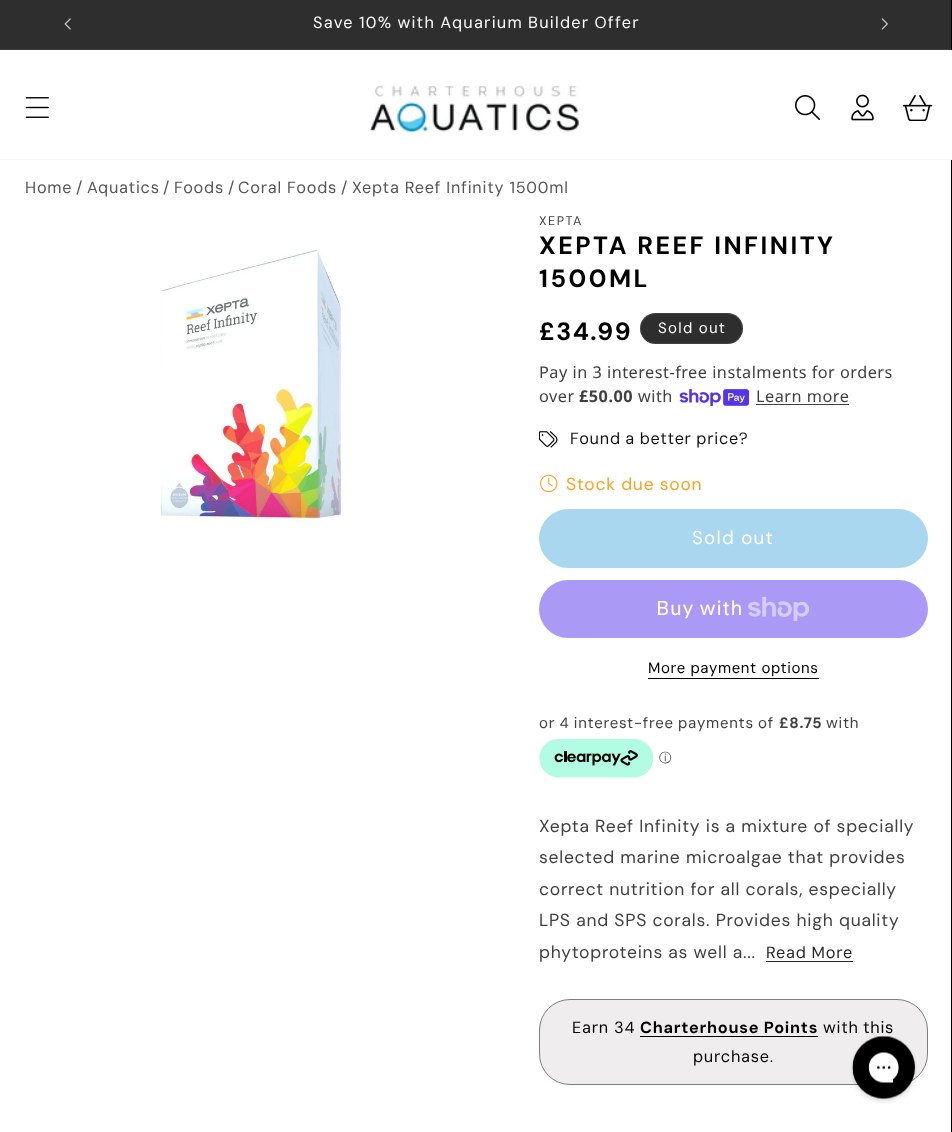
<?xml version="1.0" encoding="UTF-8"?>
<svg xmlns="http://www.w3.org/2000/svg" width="952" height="1132">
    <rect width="100%" height="100%" fill="#FFFFFF"/>
    <rect x="0" y="0" width="951" height="49" fill="#2E2E2E"/>
    <rect x="0" y="49" width="952" height="1" fill="#3F3F3F"/>
    <image x="64" y="18" width="7" height="12" href="img_01.png"/>
    <text x="313" y="28" word-spacing="-0.5" font-family="DM Sans" font-size="16.25" letter-spacing="1.25" fill="#FFFFFF">Save 10% with Aquarium Builder Offer</text>
    <image x="881" y="18" width="7" height="12" href="img_02.png"/>
    <rect x="951" y="0" width="1" height="1132" fill="#000000"/>
    <rect x="951" y="50" width="1" height="109" fill="#FFFFFF"/>
    <rect x="0" y="159" width="952" height="1" fill="#F5F5F5"/>
    <image x="25" y="97" width="24" height="21" href="img_03.png"/>
    <image x="370" y="85" width="210" height="52" href="img_04.png"/>
    <image x="795" y="95" width="25" height="25" href="img_05.png"/>
    <image x="851" y="94" width="23" height="27" href="img_06.png"/>
    <image x="902" y="95" width="31" height="26" href="img_07.png"/>
    <text x="25" y="193" font-family="DM Sans" font-size="16.25" letter-spacing="0.75" fill="#555555">Home</text>
    <text x="76" y="193" font-family="DM Sans" font-size="16.25" letter-spacing="0.75" fill="#555555">/</text>
    <text x="87" y="193" font-family="DM Sans" font-size="16.25" letter-spacing="0.75" fill="#555555">Aquatics</text>
    <text x="163" y="193" font-family="DM Sans" font-size="16.25" letter-spacing="0.75" fill="#555555">/</text>
    <text x="174" y="193" font-family="DM Sans" font-size="16.25" letter-spacing="0.75" fill="#555555">Foods</text>
    <text x="228" y="193" font-family="DM Sans" font-size="16.25" letter-spacing="0.75" fill="#555555">/</text>
    <text x="238" y="193" font-family="DM Sans" font-size="16.25" letter-spacing="0.75" fill="#555555">Coral Foods</text>
    <text x="341" y="193" font-family="DM Sans" font-size="16.25" letter-spacing="0.75" fill="#555555">/</text>
    <text x="352" y="193" font-family="DM Sans" font-size="16.25" letter-spacing="0.75" fill="#555555">Xepta Reef Infinity 1500ml</text>
    <image x="160" y="249" width="183" height="272" href="img_08.png"/>
    <text x="539" y="225" font-family="DM Sans" font-size="12.5" letter-spacing="1.5" fill="#404040">XEPTA</text>
    <text font-family="DM Sans" font-size="25" font-weight="700" letter-spacing="2.5" fill="#000000">
        <tspan x="539" y="254">XEPTA REEF INFINITY</tspan>
        <tspan x="539" y="287">1500ML</tspan>
    </text>
    <text x="539" y="340" font-family="DM Sans" font-size="25" font-weight="700" letter-spacing="1.5" fill="#000000">£34.99</text>
    <rect x="640" y="313" width="103" height="31" rx="15.5" fill="#2E2E2E"/>
    <rect x="640.5" y="313.5" width="102" height="30" rx="15" fill="none" stroke="#FFFFFF" stroke-opacity="0.1"/>
    <text x="658" y="333" font-family="DM Sans" font-size="15" letter-spacing="1.25" fill="#FFFFFF">Sold out</text>
    <text font-family="Noto Sans" font-size="16.25" letter-spacing="0.5" fill="#404040">
        <tspan x="539" y="378">Pay in 3 interest-free instalments for orders</tspan>
        <tspan x="539" y="402">over</tspan>
    </text>
    <text x="579" y="402" font-family="Noto Sans" font-size="16.25" font-weight="700" letter-spacing="0.5" fill="#404040">£50.00</text>
    <text x="638" y="402" font-family="Noto Sans" font-size="16.25" letter-spacing="0.5" fill="#404040">with</text>
    <image x="679" y="389" width="70" height="17" href="img_09.png"/>
    <text x="756" y="402" font-family="Noto Sans" font-size="16.25" letter-spacing="0.5" fill="#404040">Learn more</text>
    <rect x="756" y="404" width="93" height="1" fill="#404040"/>
    <image x="539" y="431" width="19" height="17" href="img_10.png"/>
    <text x="570" y="444" word-spacing="-0.5" font-family="DM Sans" font-size="16.25" letter-spacing="0.75" fill="#121212">Found a better price?</text>
    <image x="540" y="474" width="18" height="19" href="img_11.png"/>
    <text x="566" y="490" font-family="'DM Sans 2'" font-size="17.5" letter-spacing="0.75" fill="#FAA221">Stock due soon</text>
    <rect x="539" y="509" width="389" height="59" rx="29.5" fill="#A9D7F0"/>
    <text x="692" y="544" font-family="'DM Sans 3'" font-size="18.75" letter-spacing="1.25" fill="#FFFFFF">Sold out</text>
    <rect x="539" y="580" width="389" height="58" rx="29" fill="#AA99F5"/>
    <text x="656" y="615" font-family="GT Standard" font-size="20" letter-spacing="0.75" fill="#FFFFFF">Buy with</text>
    <image x="748" y="596" width="62" height="25" href="img_12.png"/>
    <text x="648" y="673" font-family="DM Sans" font-size="15" letter-spacing="0.6" fill="#000000">More payment options</text>
    <rect x="648" y="678" width="171" height="1" fill="#000000"/>
    <text x="539" y="728" word-spacing="-0.5" font-family="DM Sans" font-size="15" letter-spacing="0.75" fill="#404040">or 4 interest-free payments of</text>
    <text x="779" y="728" font-family="'DM Sans 2'" font-size="15" font-weight="700" letter-spacing="0.75" fill="#404040">£8.75</text>
    <text x="826" y="728" font-family="DM Sans" font-size="15" letter-spacing="0.75" fill="#404040">with</text>
    <image x="539" y="739" width="115" height="39" href="img_13.png"/>
    <text x="659" y="762" font-family="WenQuanYi Zen Hei" font-size="12.5" font-weight="500" fill="#404040">ⓘ</text>
    <text font-family="'DM Sans 2'" font-size="17.5" letter-spacing="0.75" fill="#404040">
        <tspan x="539" y="832">Xepta Reef Infinity is a mixture of specially</tspan>
        <tspan x="539" y="863">selected marine microalgae that provides</tspan>
        <tspan x="539" y="895">correct nutrition for all corals, especially</tspan>
        <tspan x="539" y="926">LPS and SPS corals. Provides high quality</tspan>
        <tspan x="539" y="958">phytoproteins as well a...</tspan>
    </text>
    <text x="766" y="958" font-family="DM Sans" font-size="16.25" letter-spacing="0.75" fill="#262626">Read More</text>
    <rect x="766" y="961" width="87" height="1" fill="#262626"/>
    <rect x="539.5" y="999.5" width="388" height="85" rx="30.5" fill="#EFEDED" stroke="#7E7E7E"/>
    <text x="572" y="1033" font-family="DM Sans" font-size="16.25" letter-spacing="0.75" fill="#000000">Earn 34</text>
    <text x="640" y="1033" font-family="'DM Sans 3'" font-size="16.25" font-weight="700" letter-spacing="0.75" fill="#000000">Charterhouse Points</text>
    <rect x="640" y="1036" width="178" height="1" fill="#000000"/>
    <text x="823" y="1033" word-spacing="-1" font-family="DM Sans" font-size="16.25" letter-spacing="0.75" fill="#000000">with this</text>
    <text x="693" y="1062" font-family="DM Sans" font-size="16.25" letter-spacing="0.75" fill="#000000">purchase.</text>
    <image x="850" y="1035" width="67" height="69" href="img_14.png"/>
</svg>
